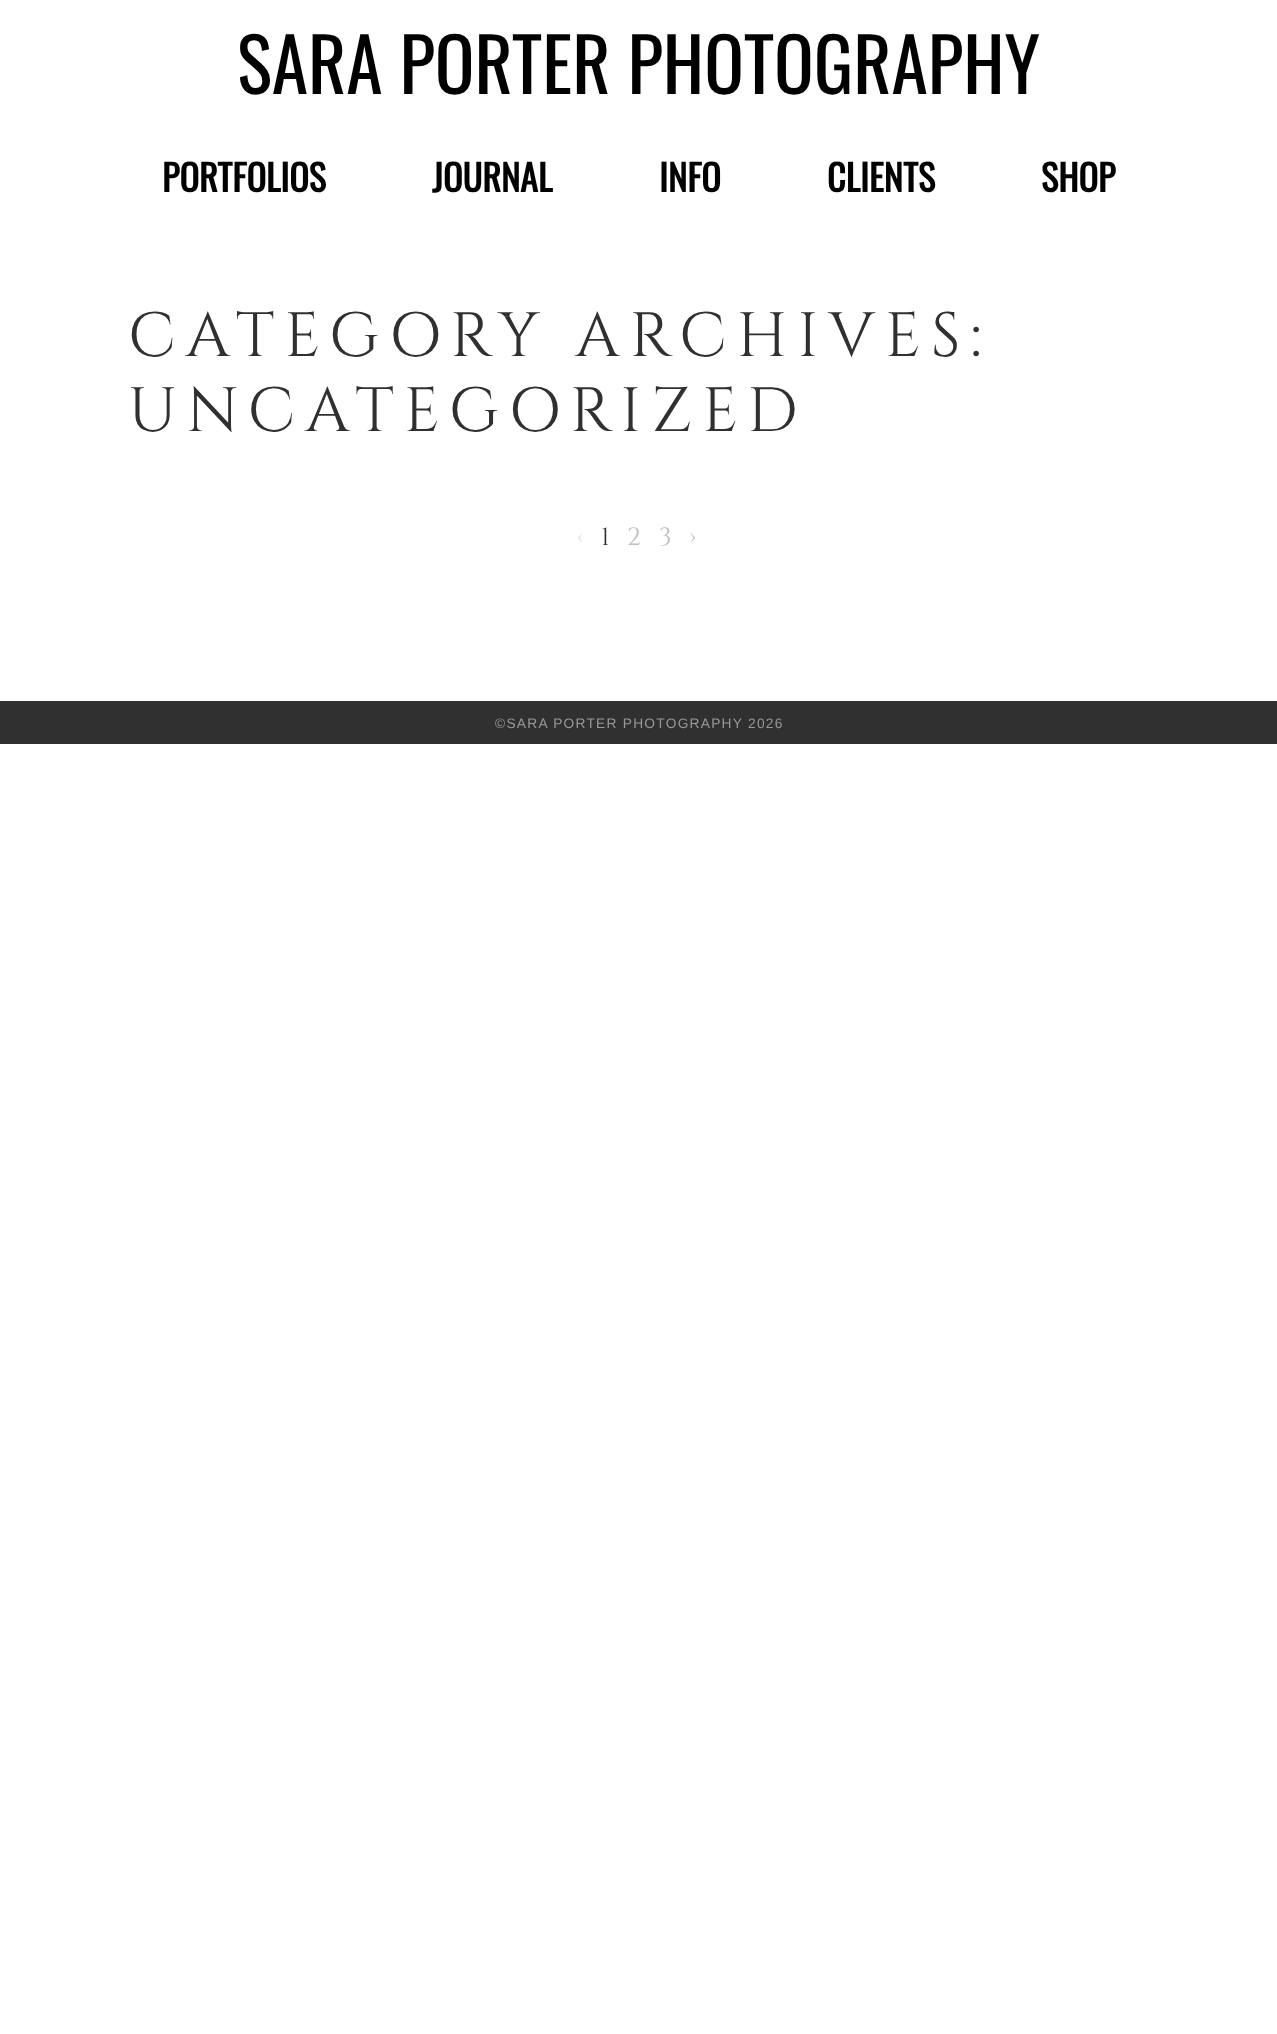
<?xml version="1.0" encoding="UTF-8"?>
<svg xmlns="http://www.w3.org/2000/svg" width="1277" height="2034">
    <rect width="100%" height="100%" fill="#FFFFFF"/>
    <text x="237" y="94" font-family="Oswald" font-size="73.75" fill="#000000">SARA PORTER PHOTOGRAPHY</text>
    <text x="162" y="192" font-family="Oswald" font-size="36.25" font-weight="700" fill="#000000">PORTFOLIOS</text>
    <text x="432" y="192" font-family="Oswald" font-size="36.25" font-weight="700" fill="#000000">JOURNAL</text>
    <text x="659" y="192" font-family="Oswald" font-size="36.25" font-weight="700" fill="#000000">INFO</text>
    <text x="827" y="192" font-family="Oswald" font-size="36.25" font-weight="700" fill="#000000">CLIENTS</text>
    <text x="1041" y="192" font-family="Oswald" font-size="36.25" font-weight="700" fill="#000000">SHOP</text>
    <text font-family="Cinzel" font-size="62.5" letter-spacing="10" fill="#303030">
        <tspan x="128" y="356">CATEGORY ARCHIVES:</tspan>
        <tspan x="128" y="431">UNCATEGORIZED</tspan>
    </text>
    <text x="577" y="545" font-family="Cinzel" font-size="25" letter-spacing="5" fill="#DFDEDD">‹</text>
    <text x="601" y="545" font-family="Cinzel" font-size="25" letter-spacing="5" fill="#303030">1</text>
    <text x="627" y="545" font-family="Cinzel" font-size="25" letter-spacing="5" fill="#BFBCBA">2</text>
    <text x="659" y="545" font-family="Cinzel" font-size="25" letter-spacing="5" fill="#BFBCBA">3</text>
    <text x="689" y="545" font-family="Cinzel" font-size="25" letter-spacing="5" fill="#BFBCBA">›</text>
    <rect x="0" y="701" width="1277" height="43" fill="#303030"/>
    <text x="495" y="728" font-family="Liberation Sans" font-size="13.75" letter-spacing="1.25" fill="#9E9696">©SARA PORTER PHOTOGRAPHY 2026</text>
</svg>
